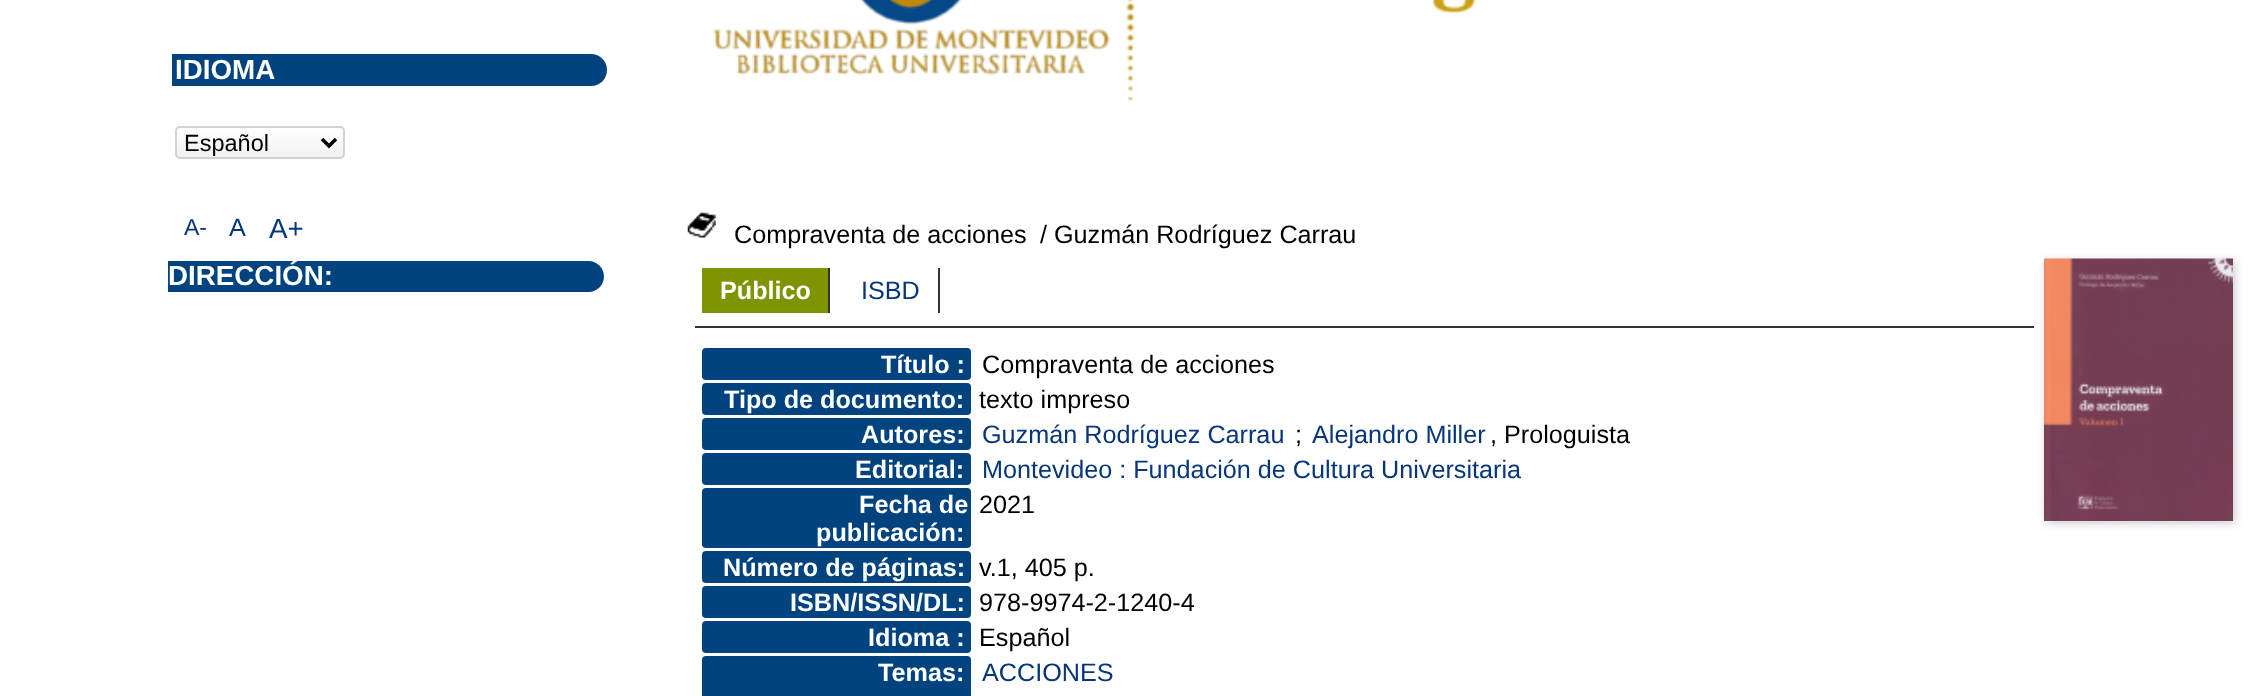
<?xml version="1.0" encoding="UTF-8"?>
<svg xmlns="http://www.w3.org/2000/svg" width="2253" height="696">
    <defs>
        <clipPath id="clip1"><rect x="175" y="126" width="170" height="33" rx="5"/></clipPath>
        <linearGradient id="g1" gradientUnits="userSpaceOnUse" x1="260" y1="128" x2="260" y2="158"><stop offset="0.01" stop-color="#FFFFFF"/><stop offset="1" stop-color="#F1F1F1"/></linearGradient>
        <filter id="blur1" x="-50%" y="-200%" width="200%" height="500%"><feGaussianBlur stdDeviation="4.5"/></filter>
    </defs>
    <rect width="100%" height="100%" fill="#FFFFFF"/>
    <path d="M 172 54 H 591 C 600 54 607 61 607 70 C 607 79 600 86 591 86 H 172 Z" fill="#00437E"/>
    <text x="175" y="79" font-family="Liberation Sans" font-size="27.75" font-weight="700" fill="#FFFFFF">IDIOMA</text>
    <g clip-path="url(#clip1)">
        <rect x="175" y="128" width="170" height="30" fill="url(#g1)"/>
    </g>
    <rect x="176" y="127" width="168" height="31" rx="4" fill="none" stroke="#D2D2D2" stroke-width="2"/>
    <path d="M 322 139 L 329 146 L 336 139" fill="none" stroke="#000000" stroke-width="3.5"/>
    <text x="184" y="151" font-family="Liberation Sans" font-size="23.5" fill="#000000">Español</text>
    <text x="184" y="235" font-family="Liberation Sans" font-size="23" fill="#06367A">A-</text>
    <text x="229" y="236" font-family="Liberation Sans" font-size="25.2" fill="#06367A">A</text>
    <text x="269" y="238" font-family="Liberation Sans" font-size="27.75" fill="#06367A">A+</text>
    <path d="M 168 261 H 588.5 C 597 261 604 268 604 276.5 C 604 285 597 292 588.5 292 H 168 Z" fill="#00437E"/>
    <text x="168" y="285" font-family="Liberation Sans" font-size="27.75" font-weight="700" fill="#FFFFFF">DIRECCIÓN:</text>
    <image x="712" y="0" width="764" height="102" href="img_01.png"/>
    <image x="687" y="212" width="29" height="26" href="img_02.png"/>
    <text x="734" y="243" font-family="Liberation Sans" font-size="25.2" fill="#000000">Compraventa de acciones</text>
    <text x="1040" y="243" font-family="Liberation Sans" font-size="25.2" fill="#000000">/ Guzmán Rodríguez Carrau</text>
    <rect x="695" y="326" width="1339" height="2" fill="#333333"/>
    <rect x="702" y="268" width="126" height="45" fill="#809300"/>
    <text x="720" y="299" font-family="Liberation Sans" font-size="25.2" font-weight="700" fill="#FFFFFF">Público</text>
    <rect x="828" y="268" width="2" height="45" fill="#333333"/>
    <text x="861" y="299" font-family="Liberation Sans" font-size="25.2" fill="#06367A">ISBD</text>
    <rect x="938" y="268" width="2" height="45" fill="#333333"/>
    <rect x="702" y="348" width="269" height="32" rx="4" fill="#00437E"/>
    <text x="881" y="373" font-family="Liberation Sans" font-size="25.2" font-weight="700" fill="#FFFFFF">Título :</text>
    <text x="982" y="373" font-family="Liberation Sans" font-size="25.2" fill="#000000">Compraventa de acciones</text>
    <rect x="702" y="383" width="269" height="32" rx="4" fill="#00437E"/>
    <text x="724" y="408" font-family="Liberation Sans" font-size="25.2" font-weight="700" fill="#FFFFFF">Tipo de documento:</text>
    <text x="979" y="408" font-family="Liberation Sans" font-size="25.2" fill="#000000">texto impreso</text>
    <rect x="702" y="418" width="269" height="32" rx="4" fill="#00437E"/>
    <text x="861" y="443" font-family="Liberation Sans" font-size="25.2" font-weight="700" fill="#FFFFFF">Autores:</text>
    <text x="982" y="443" font-family="Liberation Sans" font-size="25.2" fill="#06367A">Guzmán Rodríguez Carrau</text>
    <text x="1295" y="443" font-family="Liberation Sans" font-size="25.2" fill="#000000">;</text>
    <text x="1312" y="443" font-family="Liberation Sans" font-size="25.2" fill="#06367A">Alejandro Miller</text>
    <text x="1490" y="443" font-family="Liberation Sans" font-size="25.2" fill="#000000">, Prologuista</text>
    <rect x="702" y="453" width="269" height="32" rx="4" fill="#00437E"/>
    <text x="855" y="478" font-family="Liberation Sans" font-size="25.2" font-weight="700" fill="#FFFFFF">Editorial:</text>
    <text x="982" y="478" font-family="Liberation Sans" font-size="25.2" fill="#06367A">Montevideo : Fundación de Cultura Universitaria</text>
    <rect x="702" y="488" width="269" height="60" rx="4" fill="#00437E"/>
    <text x="859" y="513" font-family="Liberation Sans" font-size="25.2" font-weight="700" fill="#FFFFFF">Fecha de</text>
    <text x="816" y="541" font-family="Liberation Sans" font-size="25.2" font-weight="700" fill="#FFFFFF">publicación:</text>
    <text x="979" y="513" font-family="Liberation Sans" font-size="25.2" fill="#000000">2021</text>
    <rect x="702" y="551" width="269" height="32" rx="4" fill="#00437E"/>
    <text x="723" y="576" font-family="Liberation Sans" font-size="25.2" font-weight="700" fill="#FFFFFF">Número de páginas:</text>
    <text x="979" y="576" font-family="Liberation Sans" font-size="25.2" fill="#000000">v.1, 405 p.</text>
    <rect x="702" y="586" width="269" height="32" rx="4" fill="#00437E"/>
    <text x="790" y="611" font-family="Liberation Sans" font-size="25.2" font-weight="700" fill="#FFFFFF">ISBN/ISSN/DL:</text>
    <text x="979" y="611" font-family="Liberation Sans" font-size="25.2" fill="#000000">978-9974-2-1240-4</text>
    <rect x="702" y="621" width="269" height="32" rx="4" fill="#00437E"/>
    <text x="868" y="646" font-family="Liberation Sans" font-size="25.2" font-weight="700" fill="#FFFFFF">Idioma :</text>
    <text x="979" y="646" font-family="Liberation Sans" font-size="25.2" fill="#000000">Español</text>
    <rect x="702" y="656" width="269" height="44" rx="4" fill="#00437E"/>
    <text x="878" y="681" font-family="Liberation Sans" font-size="25.2" font-weight="700" fill="#FFFFFF">Temas:</text>
    <text x="982" y="681" font-family="Liberation Sans" font-size="25.2" fill="#06367A">ACCIONES</text>
    <rect x="2046" y="261" width="189" height="262" fill="#CCCCCC" filter="url(#blur1)"/>
    <image x="2044" y="258" width="189" height="263" href="img_03.png"/>
</svg>
